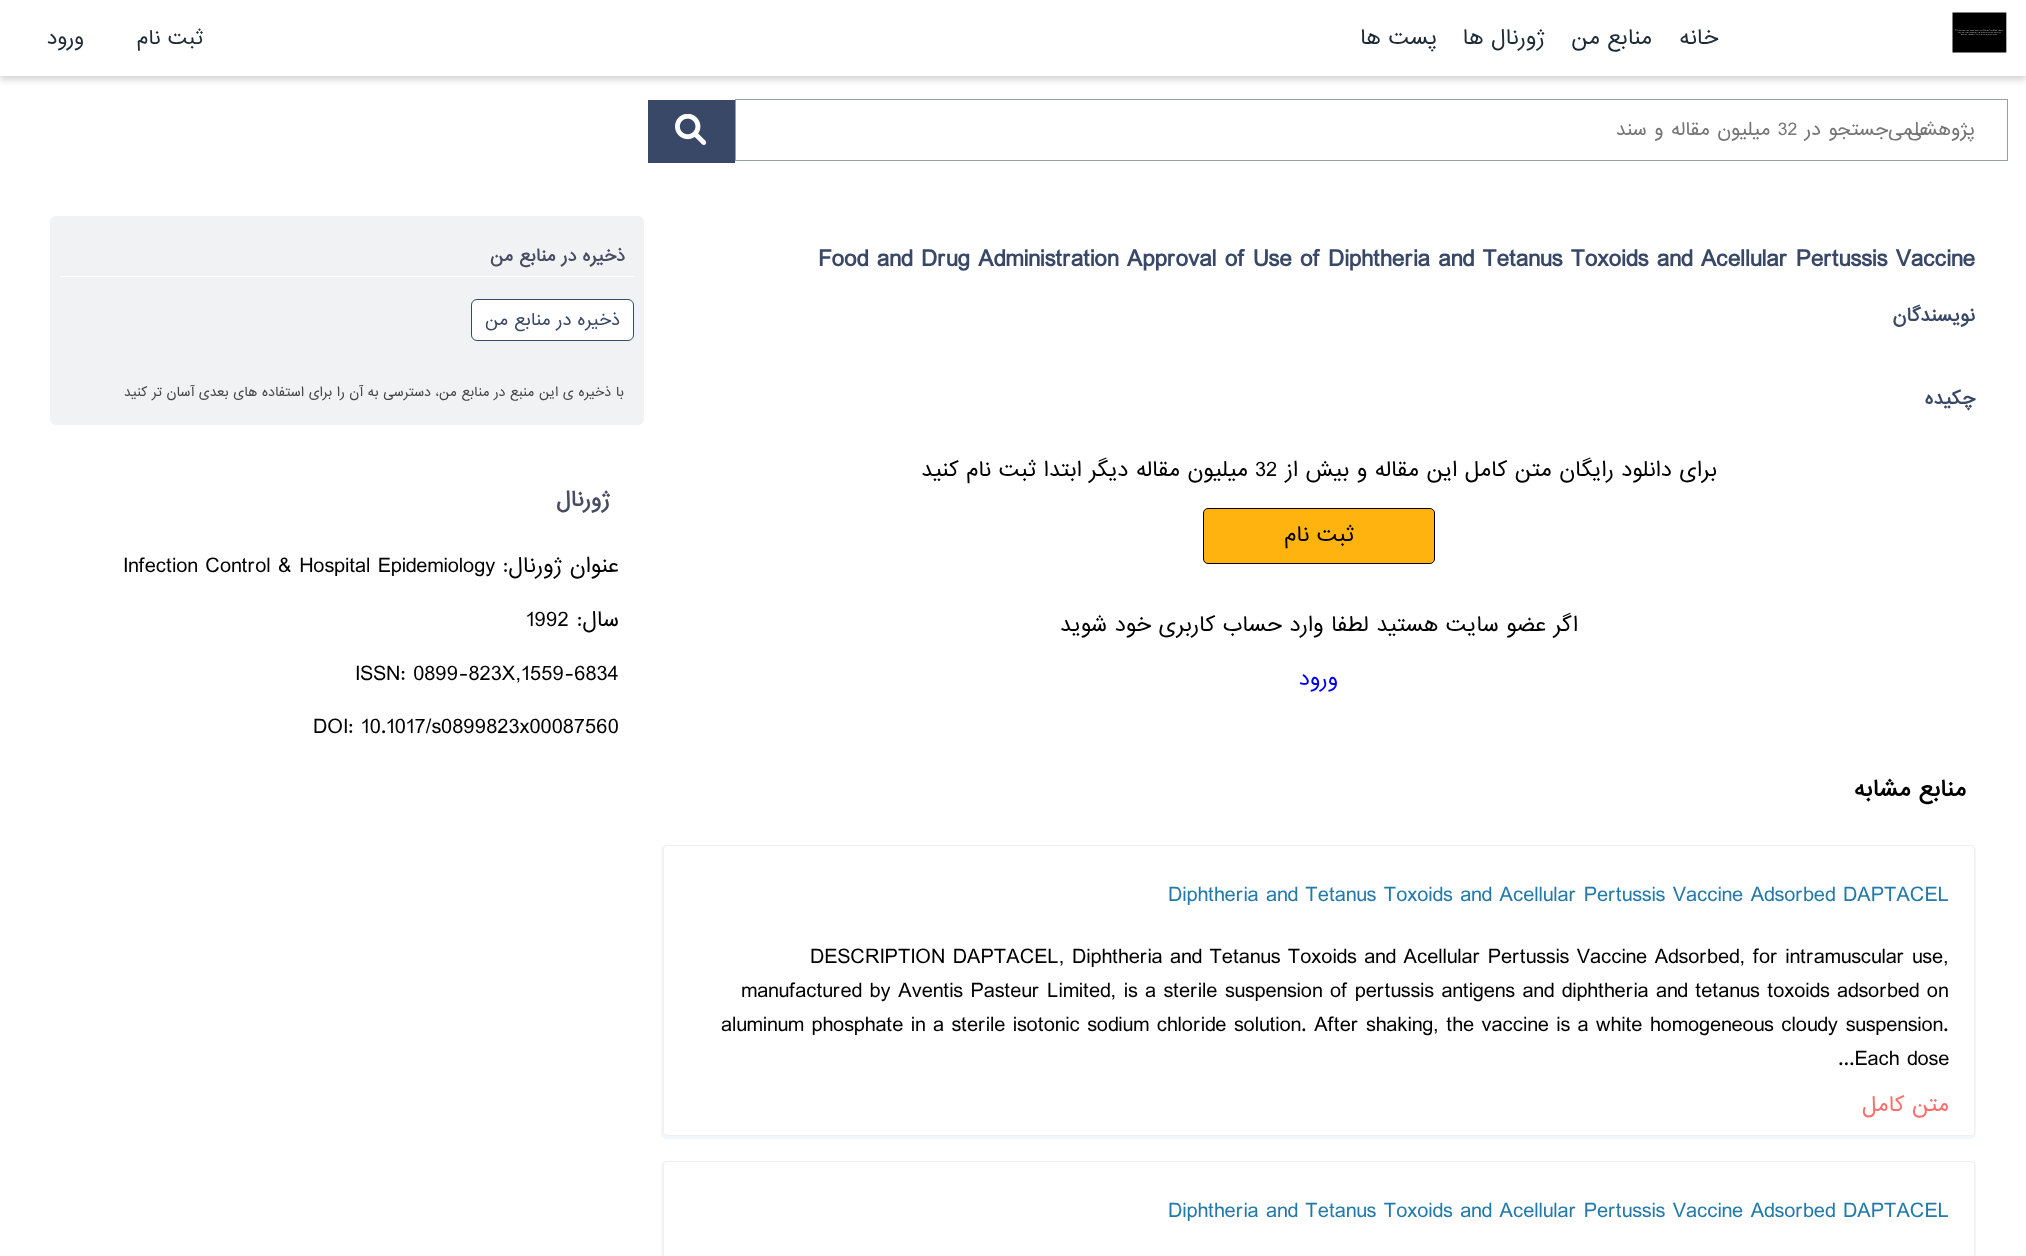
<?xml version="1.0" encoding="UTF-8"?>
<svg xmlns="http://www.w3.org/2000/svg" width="2026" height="1256">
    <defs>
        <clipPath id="clip1"><rect x="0" y="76" width="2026" height="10"/></clipPath>
        <filter id="blur1" x="-50%" y="-200%" width="200%" height="500%"><feGaussianBlur stdDeviation="3"/></filter>
        <filter id="blur2" x="-50%" y="-200%" width="200%" height="500%"><feGaussianBlur stdDeviation="0.5"/></filter>
    </defs>
    <rect width="100%" height="100%" fill="#FFFFFF"/>
    <g clip-path="url(#clip1)">
        <rect x="0" y="4" width="2026" height="76" fill="#C6C6C6" fill-opacity="0.73" filter="url(#blur1)"/>
    </g>
    <text x="84" y="44" font-family="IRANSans" font-size="19" direction="rtl" fill="#1D2B36">ورود</text>
    <text x="203" y="44" font-family="IRANSans" font-size="19" direction="rtl" fill="#1D2B36">ثبت نام</text>
    <text x="1437" y="44" font-family="IRANSans" font-size="20" direction="rtl" fill="#1D2B36">پست ها</text>
    <text x="1545" y="44" font-family="IRANSans" font-size="20" direction="rtl" fill="#1D2B36">ژورنال ها</text>
    <text x="1652" y="44" font-family="IRANSans" font-size="20" direction="rtl" fill="#1D2B36">منابع من</text>
    <text x="1718" y="44" font-family="IRANSans" font-size="20" direction="rtl" fill="#1D2B36">خانه</text>
    <image x="1952" y="12" width="55" height="41" href="img_01.png"/>
    <rect x="648" y="100" width="87" height="63" fill="#394867"/>
    <image x="675" y="114" width="31" height="31" href="img_02.png"/>
    <rect x="735.5" y="99.5" width="1272" height="61" fill="none" stroke="#999EA3"/>
    <text x="1888" y="135" word-spacing="1" font-family="IRANSans" font-size="17.5" direction="rtl" fill="#757575">جستجو در 32 میلیون مقاله و سند</text>
    <text x="1929" y="135" font-family="IRANSans" font-size="17.5" direction="rtl" fill="#757575">علمی</text>
    <text x="1975" y="135" font-family="IRANSans" font-size="17.5" direction="rtl" fill="#757575">پژوهشی</text>
    <rect x="50" y="216" width="594" height="209" rx="6" fill="#F1F2F3"/>
    <rect x="60" y="276" width="574" height="1" fill="#FFFFFF"/>
    <text x="625" y="261" font-family="IRANSans" font-size="16.25" font-weight="700" direction="rtl" fill="#484B62">ذخیره در منابع من</text>
    <rect x="471.5" y="299.5" width="162" height="41" rx="5.5" fill="#FFFFFF" stroke="#394867"/>
    <text x="620" y="325" font-family="IRANSans" font-size="16.25" direction="rtl" fill="#394867">ذخیره در منابع من</text>
    <text x="624" y="396" font-family="IRANSans" font-size="12.5" direction="rtl" fill="#444444">با ذخیره ی این منبع در منابع من، دسترسی به آن را برای استفاده های بعدی آسان تر کنید</text>
    <text x="610" y="506" font-family="IRANSans" font-size="20" font-weight="700" direction="rtl" fill="#484B62">ژورنال</text>
    <text x="123" y="572" font-family="IRANSans" font-size="20" fill="#000000">Infection Control &amp; Hospital Epidemiology</text>
    <text x="619" y="572" font-family="IRANSans" font-size="20" direction="rtl" fill="#000000">عنوان ژورنال:</text>
    <text x="526" y="626" font-family="IRANSans" font-size="20" fill="#000000">1992</text>
    <text x="619" y="626" font-family="IRANSans" font-size="20" direction="rtl" fill="#000000">سال:</text>
    <text x="355" y="680" font-family="IRANSans" font-size="20" fill="#000000">ISSN: 0899-823X,1559-6834</text>
    <text x="313" y="733" font-family="IRANSans" font-size="20" fill="#000000">DOI: 10.1017/s0899823x00087560</text>
    <text x="818" y="266" font-family="IRANSans" font-size="22.5" font-weight="700" fill="#394867">Food and Drug Administration Approval of Use of Diphtheria and Tetanus Toxoids and Acellular Pertussis Vaccine</text>
    <text x="1975" y="321" font-family="IRANSans" font-size="17.5" font-weight="700" direction="rtl" fill="#394867">نویسندگان</text>
    <text x="1975" y="404" font-family="IRANSans" font-size="17.5" font-weight="700" direction="rtl" fill="#394867">چکیده</text>
    <text x="1248" y="476" font-family="IRANSans" font-size="20" direction="rtl" fill="#000000">میلیون مقاله دیگر ابتدا ثبت نام کنید</text>
    <text x="1255" y="476" font-family="IRANSans" font-size="20" fill="#000000">32</text>
    <text x="1717" y="476" font-family="IRANSans" font-size="20" direction="rtl" fill="#000000">برای دانلود رایگان متن کامل این مقاله و بیش از</text>
    <rect x="1203.5" y="508.5" width="231" height="55" rx="4.5" fill="#FFB30F" stroke="#000000"/>
    <text x="1354" y="541" font-family="IRANSans" font-size="20" direction="rtl" fill="#000000">ثبت نام</text>
    <text x="1578" y="631" font-family="IRANSans" font-size="20" direction="rtl" fill="#000000">اگر عضو سایت هستید لطفا وارد حساب کاربری خود شوید</text>
    <text x="1338" y="685" font-family="IRANSans" font-size="20" direction="rtl" fill="#0000EE">ورود</text>
    <text x="1966" y="796" font-family="IRANSans" font-size="21.25" font-weight="700" direction="rtl" fill="#000000">منابع مشابه</text>
    <rect x="661" y="845" width="1315" height="294" rx="5" fill="#BDD5EA" fill-opacity="0.2" filter="url(#blur2)"/>
    <rect x="663.5" y="845.5" width="1311" height="290" rx="3.5" fill="#FFFFFF" stroke="#EFEFF1"/>
    <text x="1168" y="901" font-family="IRANSans" font-size="20" fill="#237AAA">Diphtheria and Tetanus Toxoids and Acellular Pertussis Vaccine Adsorbed DAPTACEL</text>
    <text x="810" y="963" font-family="IRANSans" font-size="20" fill="#000000">DESCRIPTION DAPTACEL, Diphtheria and Tetanus Toxoids and Acellular Pertussis Vaccine Adsorbed, for intramuscular use,</text>
    <text x="741" y="997" font-family="IRANSans" font-size="20" fill="#000000">manufactured by Aventis Pasteur Limited, is a sterile suspension of pertussis antigens and diphtheria and tetanus toxoids adsorbed on</text>
    <text x="721" y="1031" font-family="IRANSans" font-size="20" fill="#000000">aluminum phosphate in a sterile isotonic sodium chloride solution. After shaking, the vaccine is a white homogeneous cloudy suspension.</text>
    <text x="1838" y="1065" font-family="IRANSans" font-size="20" fill="#000000">...Each dose</text>
    <text x="1949" y="1111" font-family="IRANSans" font-size="20" direction="rtl" fill="#FD6D6C">متن کامل</text>
    <rect x="661" y="1161" width="1315" height="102" rx="5" fill="#BDD5EA" fill-opacity="0.2" filter="url(#blur2)"/>
    <path d="M 667 1161 H 1971 C 1973 1161 1975 1163 1975 1165 V 1256 H 663 V 1165 C 663 1163 665 1161 667 1161 Z" fill="#FFFFFF"/>
    <rect x="663.5" y="1161.5" width="1311" height="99" rx="3.5" fill="none" stroke="#EFEFF1"/>
    <text x="1168" y="1217" font-family="IRANSans" font-size="20" fill="#237AAA">Diphtheria and Tetanus Toxoids and Acellular Pertussis Vaccine Adsorbed DAPTACEL</text>
</svg>
